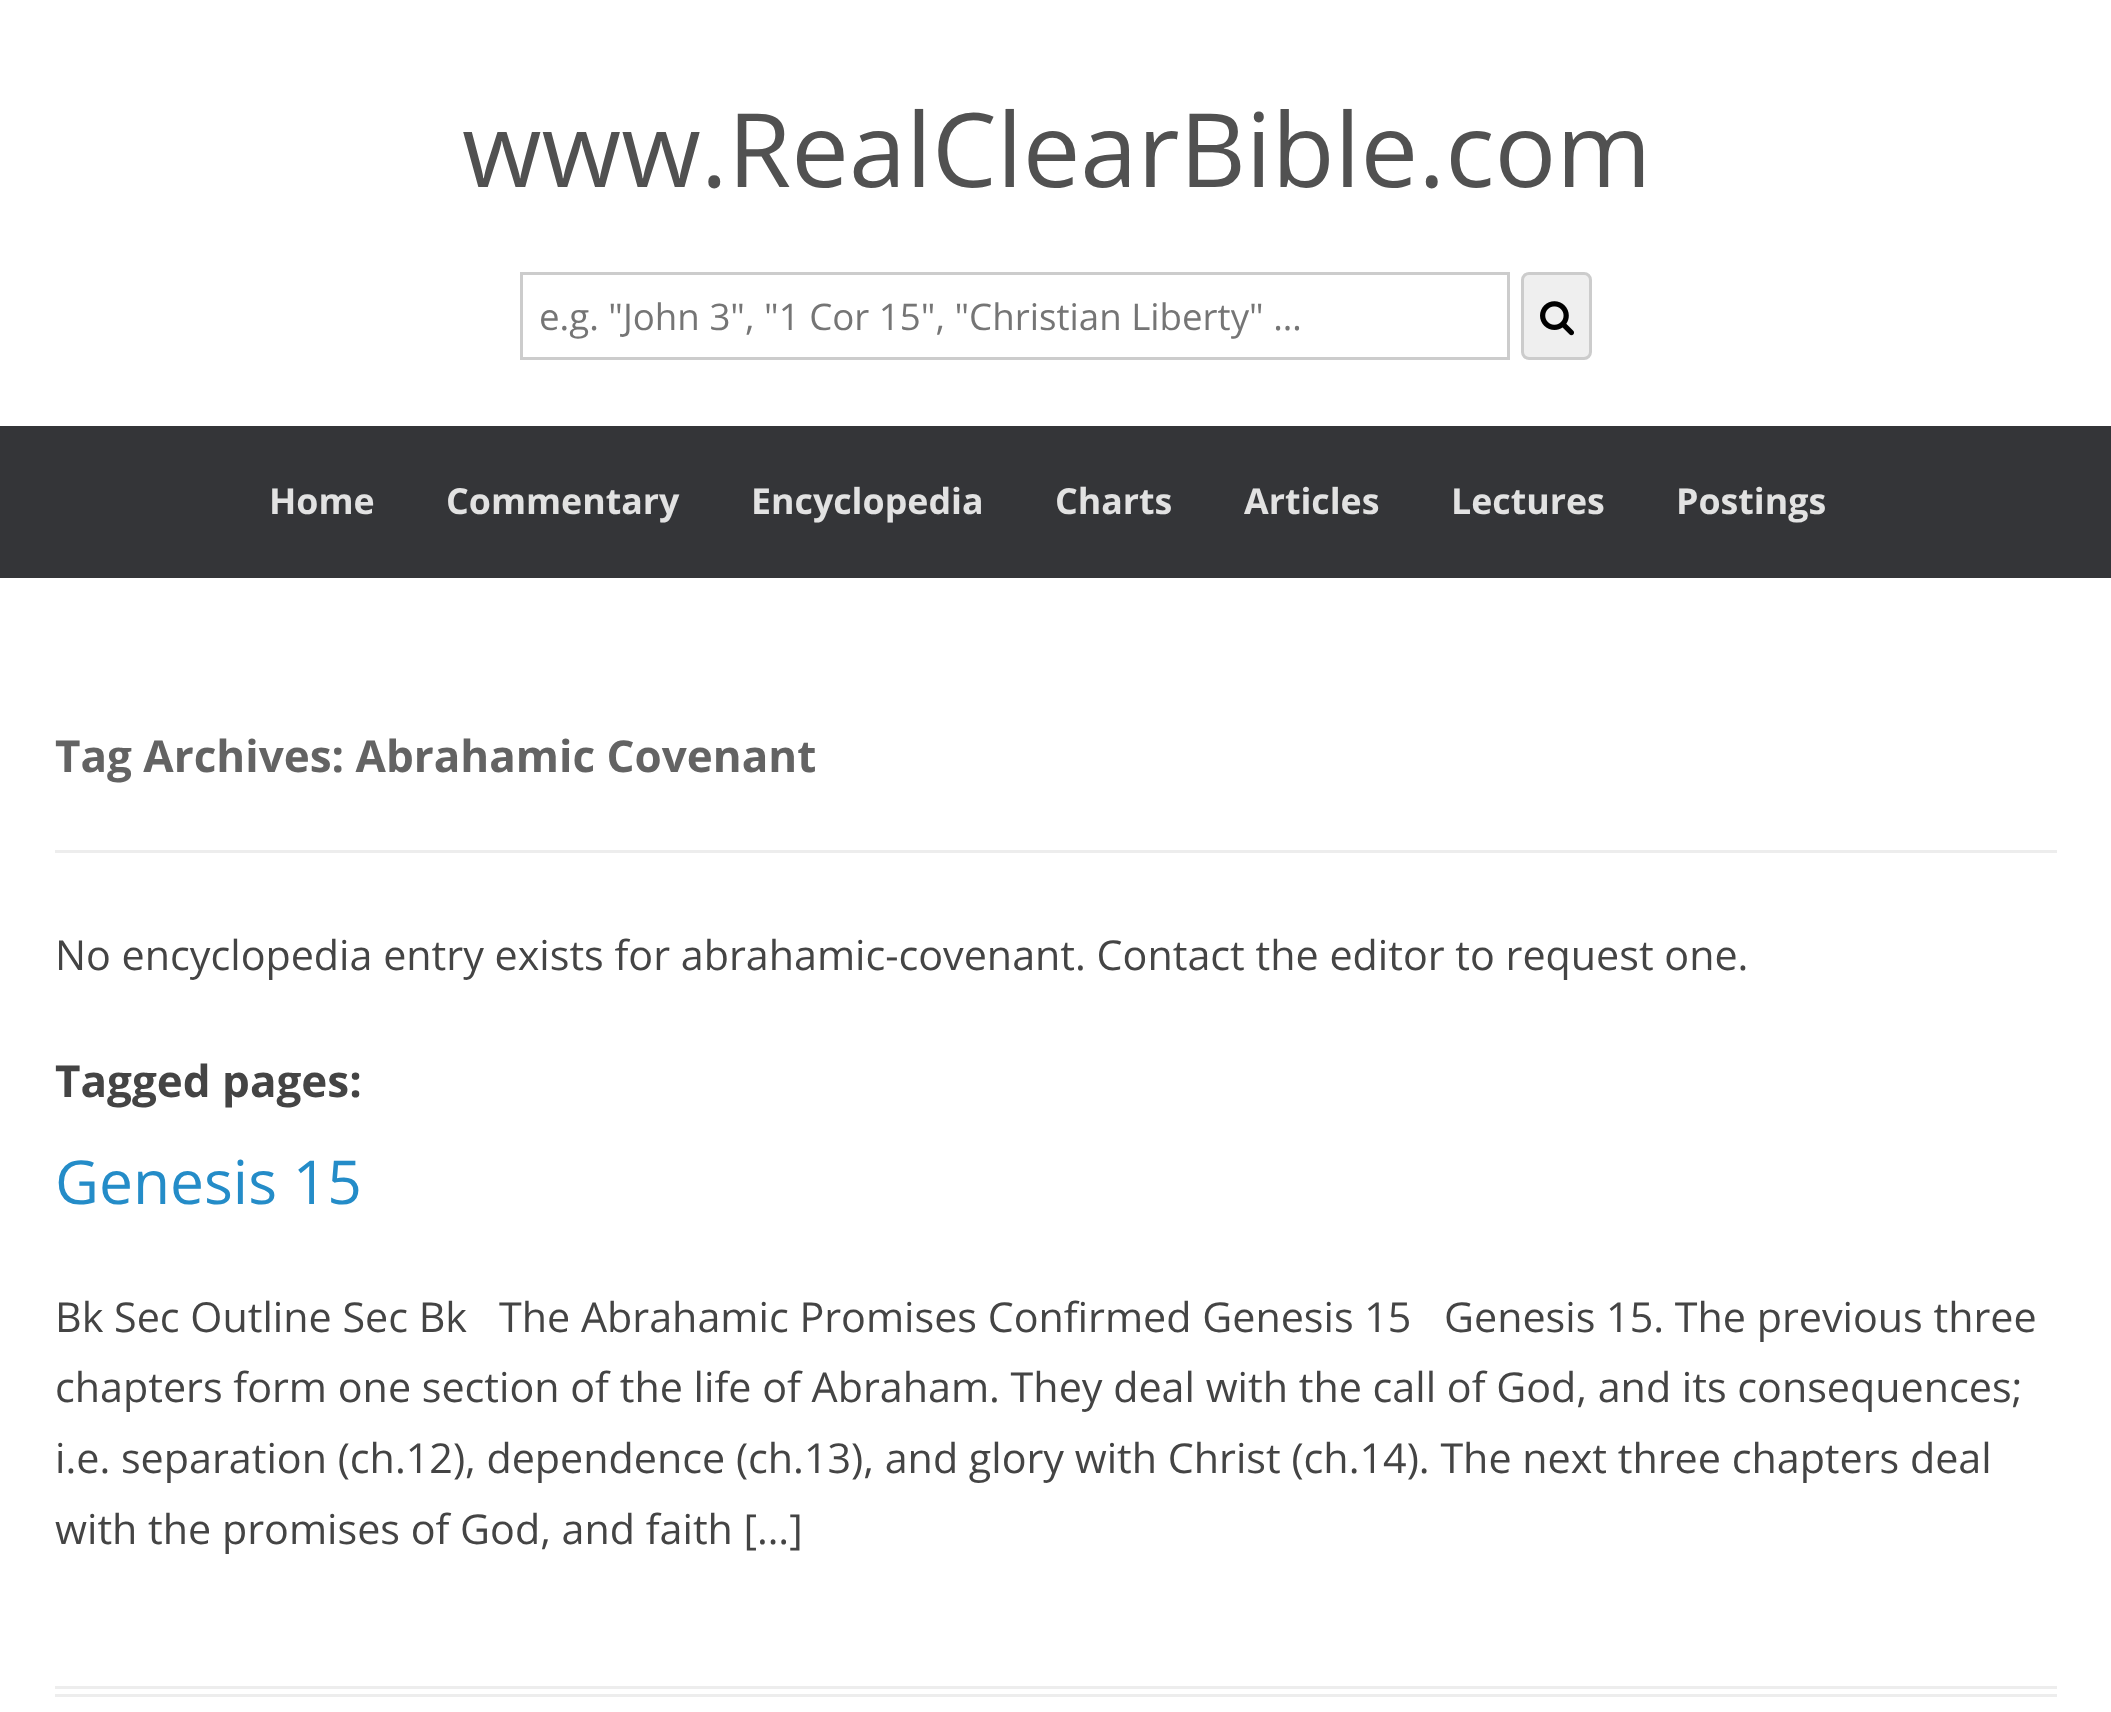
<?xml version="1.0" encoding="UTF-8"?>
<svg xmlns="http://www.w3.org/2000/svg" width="2111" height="1712">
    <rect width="100%" height="100%" fill="#FFFFFF"/>
    <text x="462" y="187" font-family="Open Sans" font-size="102.75" fill="#515151">www.RealClearBible.com</text>
    <rect x="521.5" y="273.5" width="987" height="85" fill="none" stroke="#CCCCCC" stroke-width="3"/>
    <text x="539" y="330" font-family="Open Sans" font-size="36.7" fill="#757575">e.g. "John 3", "1 Cor 15", "Christian Liberty" …</text>
    <rect x="1522.5" y="273.5" width="68" height="85" rx="6.5" fill="#EFEFEF" stroke="#CCCCCC" stroke-width="3"/>
    <image x="1540" y="301" width="34" height="35" href="img_01.png"/>
    <rect x="0" y="426" width="2111" height="152" fill="#343538"/>
    <text x="269" y="514" font-family="Open Sans" font-size="35.75" font-weight="700" fill="#E2E2E2">Home</text>
    <text x="446" y="514" font-family="Open Sans" font-size="35.75" font-weight="700" fill="#E2E2E2">Commentary</text>
    <text x="751" y="514" font-family="Open Sans" font-size="35.75" font-weight="700" fill="#E2E2E2">Encyclopedia</text>
    <text x="1055" y="514" font-family="Open Sans" font-size="35.75" font-weight="700" fill="#E2E2E2">Charts</text>
    <text x="1244" y="514" font-family="Open Sans" font-size="35.75" font-weight="700" fill="#E2E2E2">Articles</text>
    <text x="1451" y="514" font-family="Open Sans" font-size="35.75" font-weight="700" fill="#E2E2E2">Lectures</text>
    <text x="1676" y="514" font-family="Open Sans" font-size="35.75" font-weight="700" fill="#E2E2E2">Postings</text>
    <rect x="55" y="850" width="2002" height="3" fill="#EDEDED"/>
    <text x="55" y="772" font-family="Open Sans" font-size="44" font-weight="700" fill="#636363">Tag Archives: Abrahamic Covenant</text>
    <text x="55" y="970" font-family="Open Sans" font-size="41.25" fill="#444444">No encyclopedia entry exists for abrahamic-covenant. Contact the editor to request one.</text>
    <text x="55" y="1097" font-family="Open Sans" font-size="44" font-weight="700" fill="#444444">Tagged pages:</text>
    <rect x="55" y="1686" width="2002" height="3" fill="#EDEDED"/>
    <rect x="55" y="1694" width="2002" height="3" fill="#EDEDED"/>
    <text x="55" y="1204" font-family="Open Sans" font-size="60.5" fill="#248CC8">Genesis 15</text>
    <text x="55" y="1332" font-family="Open Sans" font-size="41.25" fill="#444444" xml:space="preserve">Bk Sec Outline Sec Bk   The Abrahamic Promises Confirmed Genesis 15</text>
    <text x="1444" y="1332" font-family="Open Sans" font-size="41.25" fill="#444444">Genesis 15. The previous three</text>
    <text font-family="Open Sans" font-size="41.25" fill="#444444">
        <tspan x="55" y="1402">chapters form one section of the life of Abraham. They deal with the call of God, and its consequences;</tspan>
        <tspan x="55" y="1473">i.e. separation (ch.12), dependence (ch.13), and glory with Christ (ch.14). The next three chapters deal</tspan>
        <tspan x="55" y="1544">with the promises of God, and faith […]</tspan>
    </text>
</svg>
